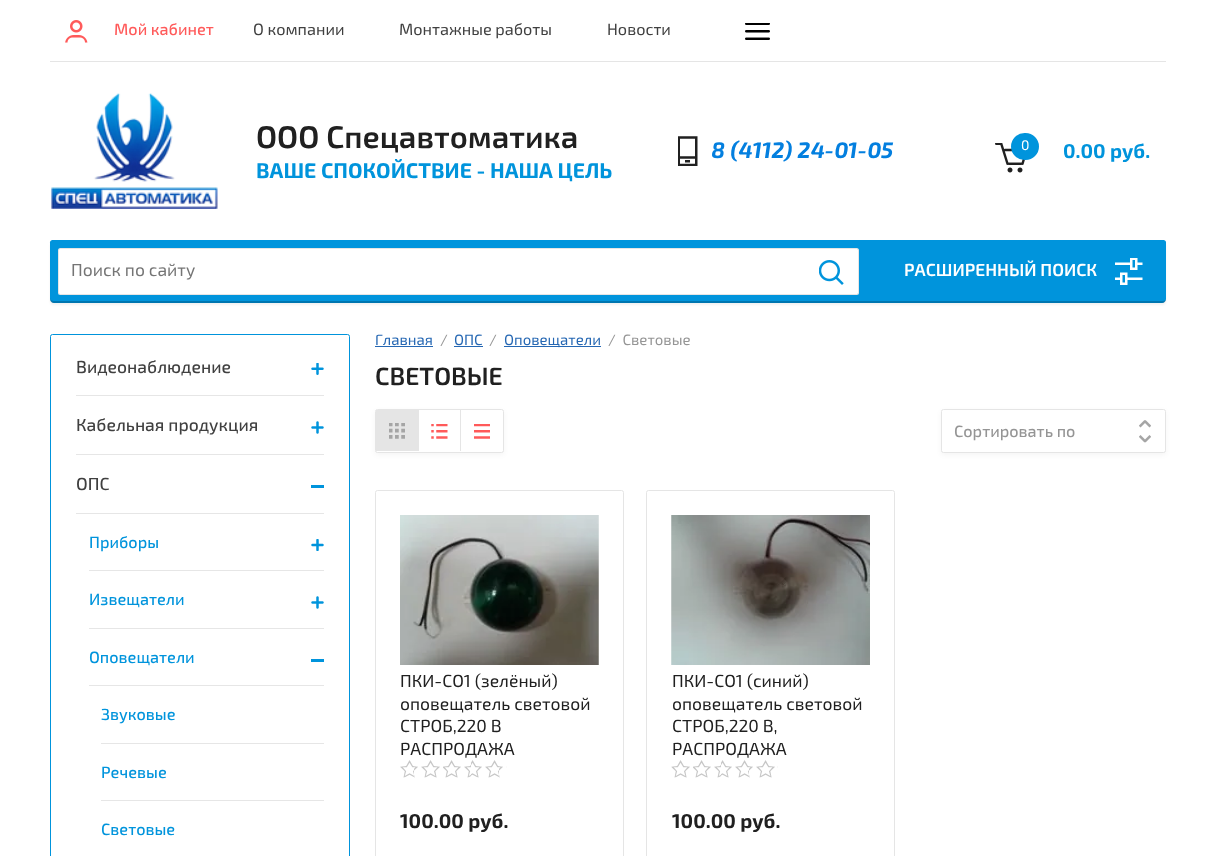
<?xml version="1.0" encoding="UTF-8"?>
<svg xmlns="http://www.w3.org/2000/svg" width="1216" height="856">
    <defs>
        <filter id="blur1" x="-50%" y="-200%" width="200%" height="500%"><feGaussianBlur stdDeviation="1"/></filter>
        <filter id="blur2" x="-50%" y="-200%" width="200%" height="500%"><feGaussianBlur stdDeviation="2.5"/></filter>
    </defs>
    <rect width="100%" height="100%" fill="#FFFFFF"/>
    <rect x="50" y="61" width="1116" height="1" fill="#E5E5E5"/>
    <image x="65" y="20" width="23" height="23" href="img_01.png"/>
    <text x="114" y="35" font-family="'Exo 2'" font-size="16.25" font-weight="500" fill="#FF5A5A">Мой кабинет</text>
    <text x="253" y="35" font-family="'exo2'" font-size="16.25" fill="#404040">О компании</text>
    <text x="399" y="35" font-family="'exo2'" font-size="16.25" fill="#404040">Монтажные работы</text>
    <text x="607" y="35" font-family="'exo2'" font-size="16.25" fill="#404040">Новости</text>
    <image x="745" y="23" width="25" height="17" href="img_02.png"/>
    <image x="51" y="93" width="167" height="116" href="img_03.png"/>
    <text x="256" y="148" font-family="'Exo 2'" font-size="31.25" font-weight="600" fill="#202020">ООО Спецавтоматика</text>
    <text x="256" y="178" font-family="'exo2'" font-size="21.25" font-weight="700" fill="#0094DC">ВАШЕ СПОКОЙСТВИЕ - НАША ЦЕЛЬ</text>
    <image x="678" y="136" width="20" height="30" href="img_04.png"/>
    <text x="711" y="158" font-family="'exo2'" font-size="22.5" font-weight="700" font-style="italic" fill="#037FDF">8 (4112) 24-01-05</text>
    <image x="995" y="143" width="31" height="30" href="img_05.png"/>
    <rect x="1011" y="133" width="28" height="27" rx="13.5" fill="#0094DC"/>
    <text x="1021" y="150" font-family="'exo2'" font-size="14" fill="#FFFFFF">0</text>
    <text x="1063" y="158" font-family="'exo2'" font-size="20" font-weight="700" fill="#0094DC">0.00 руб.</text>
    <rect x="50" y="243" width="1116" height="62" rx="4" fill="#000000" fill-opacity="0.05" filter="url(#blur1)"/>
    <path d="M 52.5 240 H 1163.5 C 1165 240 1166 241 1166 242.5 V 299 C 1166 301 1164 303 1162 303 H 54 C 52 303 50 301 50 299 V 242.5 C 50 241 51 240 52.5 240 Z" fill="#0094DC"/>
    <path d="M 50 298 C 50 301 51 303 54 303 H 1162 C 1165 303 1166 301 1166 298 C 1166 300 1165 301 1162 301 H 54 C 52 301 50 300 50 298 Z" fill="#000000" fill-opacity="0.2"/>
    <rect x="58" y="248" width="801" height="47" rx="2.5" fill="#FFFFFF"/>
    <rect x="58.5" y="248.5" width="800" height="46" rx="2" fill="none" stroke="#000000" stroke-opacity="0.1"/>
    <text x="71" y="276" font-family="'exo2'" font-size="17.5" fill="#757575">Поиск по сайту</text>
    <image x="819" y="260" width="25" height="25" href="img_06.png"/>
    <text x="904" y="276" font-family="'Exo 2'" font-size="17.5" font-weight="600" fill="#FFFFFF">РАСШИРЕННЫЙ ПОИСК</text>
    <image x="1115" y="258" width="28" height="27" href="img_07.png"/>
    <rect x="50.5" y="334.5" width="299" height="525" rx="2" fill="none" stroke="#0094DC"/>
    <rect x="76" y="395" width="248" height="1" fill="#E6E6E6"/>
    <text x="76" y="373" font-family="'Exo 2'" font-size="17.5" font-weight="500" fill="#404040">Видеонаблюдение</text>
    <image x="311" y="363" width="13" height="12" href="img_08.png"/>
    <rect x="76" y="454" width="248" height="1" fill="#E6E6E6"/>
    <text x="76" y="431" font-family="'Exo 2'" font-size="17.5" font-weight="500" fill="#404040">Кабельная продукция</text>
    <image x="311" y="421" width="13" height="13" href="img_09.png"/>
    <rect x="76" y="513" width="248" height="1" fill="#E6E6E6"/>
    <text x="76" y="490" font-family="'Exo 2'" font-size="17.5" font-weight="500" fill="#404040">ОПС</text>
    <rect x="311" y="485" width="13" height="3" fill="#0094DC"/>
    <rect x="89" y="570" width="235" height="1" fill="#E6E6E6"/>
    <text x="89" y="548" font-family="'Exo 2'" font-size="16.25" font-weight="500" fill="#0094DC">Приборы</text>
    <image x="311" y="539" width="13" height="12" href="img_10.png"/>
    <rect x="89" y="628" width="235" height="1" fill="#E6E6E6"/>
    <text x="89" y="605" font-family="'Exo 2'" font-size="16.25" font-weight="500" fill="#0094DC">Извещатели</text>
    <image x="311" y="596" width="13" height="13" href="img_09.png"/>
    <rect x="89" y="685" width="235" height="1" fill="#E6E6E6"/>
    <text x="89" y="663" font-family="'Exo 2'" font-size="16.25" font-weight="500" fill="#0094DC">Оповещатели</text>
    <rect x="311" y="659" width="13" height="3" fill="#0094DC"/>
    <rect x="101" y="743" width="223" height="1" fill="#E6E6E6"/>
    <text x="101" y="720" font-family="'Exo 2'" font-size="16.25" font-weight="500" fill="#0094DC">Звуковые</text>
    <rect x="101" y="800" width="223" height="1" fill="#E6E6E6"/>
    <text x="101" y="778" font-family="'Exo 2'" font-size="16.25" font-weight="500" fill="#0094DC">Речевые</text>
    <text x="101" y="835" font-family="'Exo 2'" font-size="16.25" font-weight="500" fill="#0094DC">Световые</text>
    <text x="375" y="345" font-family="'exo2'" font-size="15" fill="#2567B3">Главная</text>
    <rect x="375" y="346" width="58" height="1" fill="#2567B3"/>
    <text x="440" y="345" font-family="'exo2'" font-size="15" fill="#959595">/</text>
    <text x="454" y="345" font-family="'exo2'" font-size="15" fill="#2567B3">ОПС</text>
    <rect x="454" y="346" width="29" height="1" fill="#2567B3"/>
    <text x="489" y="345" font-family="'exo2'" font-size="15" fill="#959595">/</text>
    <rect x="504" y="346" width="97" height="1" fill="#2567B3"/>
    <text x="504" y="345" font-family="'exo2'" font-size="15" fill="#2567B3">Оповещатели</text>
    <text x="608" y="345" font-family="'exo2'" font-size="15" fill="#959595" xml:space="preserve">/  Световые</text>
    <text x="375" y="385" font-family="'Exo 2'" font-size="25" font-weight="600" fill="#202020">СВЕТОВЫЕ</text>
    <rect x="375" y="411" width="129" height="44" rx="2.5" fill="#000000" fill-opacity="0.04" filter="url(#blur2)"/>
    <rect x="375.5" y="409.5" width="128" height="43" rx="2" fill="#FFFFFF" stroke="#E5E5E5"/>
    <rect x="376" y="410" width="43" height="41" fill="#E5E5E5"/>
    <image x="389" y="423" width="16" height="16" href="img_11.png"/>
    <image x="431" y="424" width="17" height="15" href="img_12.png"/>
    <rect x="460" y="410" width="1" height="41" fill="#E5E5E5"/>
    <image x="474" y="424" width="16" height="15" href="img_13.png"/>
    <rect x="941" y="411" width="225" height="44" rx="2.5" fill="#000000" fill-opacity="0.04" filter="url(#blur2)"/>
    <rect x="941.5" y="409.5" width="224" height="43" rx="2" fill="#FFFFFF" stroke="#E5E5E5"/>
    <text x="954" y="437" font-family="'Exo 2'" font-size="16.25" font-weight="500" fill="#959595">Сортировать по</text>
    <image x="1139" y="420" width="12" height="23" href="img_14.png"/>
    <rect x="375.5" y="490.5" width="248" height="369" rx="2" fill="none" stroke="#E5E5E5"/>
    <image x="400" y="515" width="199" height="150" href="img_15.png"/>
    <text font-family="'exo2'" font-size="17.5" fill="#202020">
        <tspan x="400" y="687">ПКИ-СО1 (зелёный)</tspan>
        <tspan x="400" y="710">оповещатель световой</tspan>
        <tspan x="400" y="732">СТРОБ,220 В</tspan>
        <tspan x="400" y="755">РАСПРОДАЖА</tspan>
    </text>
    <image x="400" y="760" width="107" height="18" href="img_16.png"/>
    <text x="400" y="828" font-family="'exo2'" font-size="20" font-weight="700" fill="#202020">100.00 руб.</text>
    <rect x="646.5" y="490.5" width="248" height="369" rx="2" fill="none" stroke="#E5E5E5"/>
    <image x="671" y="515" width="199" height="150" href="img_17.png"/>
    <text font-family="'exo2'" font-size="17.5" fill="#202020">
        <tspan x="672" y="687">ПКИ-СО1 (синий)</tspan>
        <tspan x="672" y="710">оповещатель световой</tspan>
        <tspan x="672" y="732">СТРОБ,220 В,</tspan>
        <tspan x="672" y="755">РАСПРОДАЖА</tspan>
    </text>
    <image x="671" y="760" width="107" height="18" href="img_18.png"/>
    <text x="672" y="828" font-family="'exo2'" font-size="20" font-weight="700" fill="#202020">100.00 руб.</text>
</svg>
